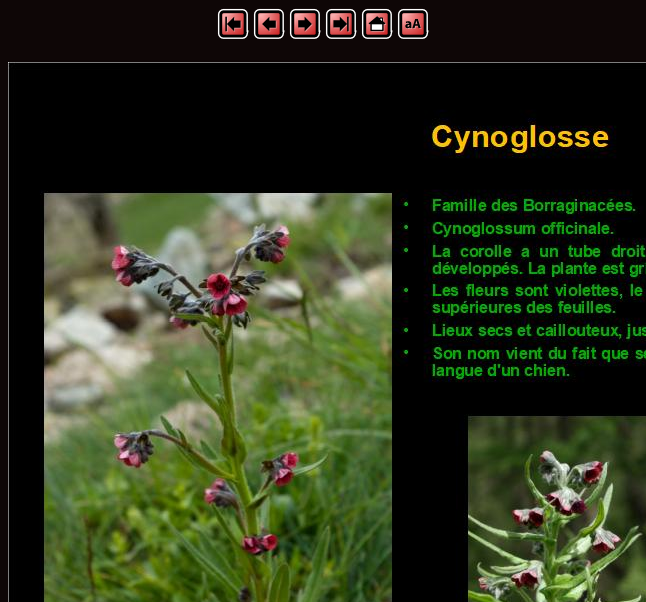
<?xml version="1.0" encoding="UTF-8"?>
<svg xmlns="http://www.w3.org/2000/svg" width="646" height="602">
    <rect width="100%" height="100%" fill="#0E0606"/>
    <image x="217" y="8" width="32" height="31" href="img_01.png"/>
    <image x="253" y="8" width="32" height="31" href="img_02.png"/>
    <image x="289" y="8" width="32" height="31" href="img_03.png"/>
    <image x="325" y="8" width="32" height="31" href="img_04.png"/>
    <image x="361" y="8" width="32" height="31" href="img_05.png"/>
    <image x="397" y="8" width="32" height="31" href="img_06.png"/>
    <image x="8" y="62" width="638" height="540" href="img_07.png"/>
</svg>
